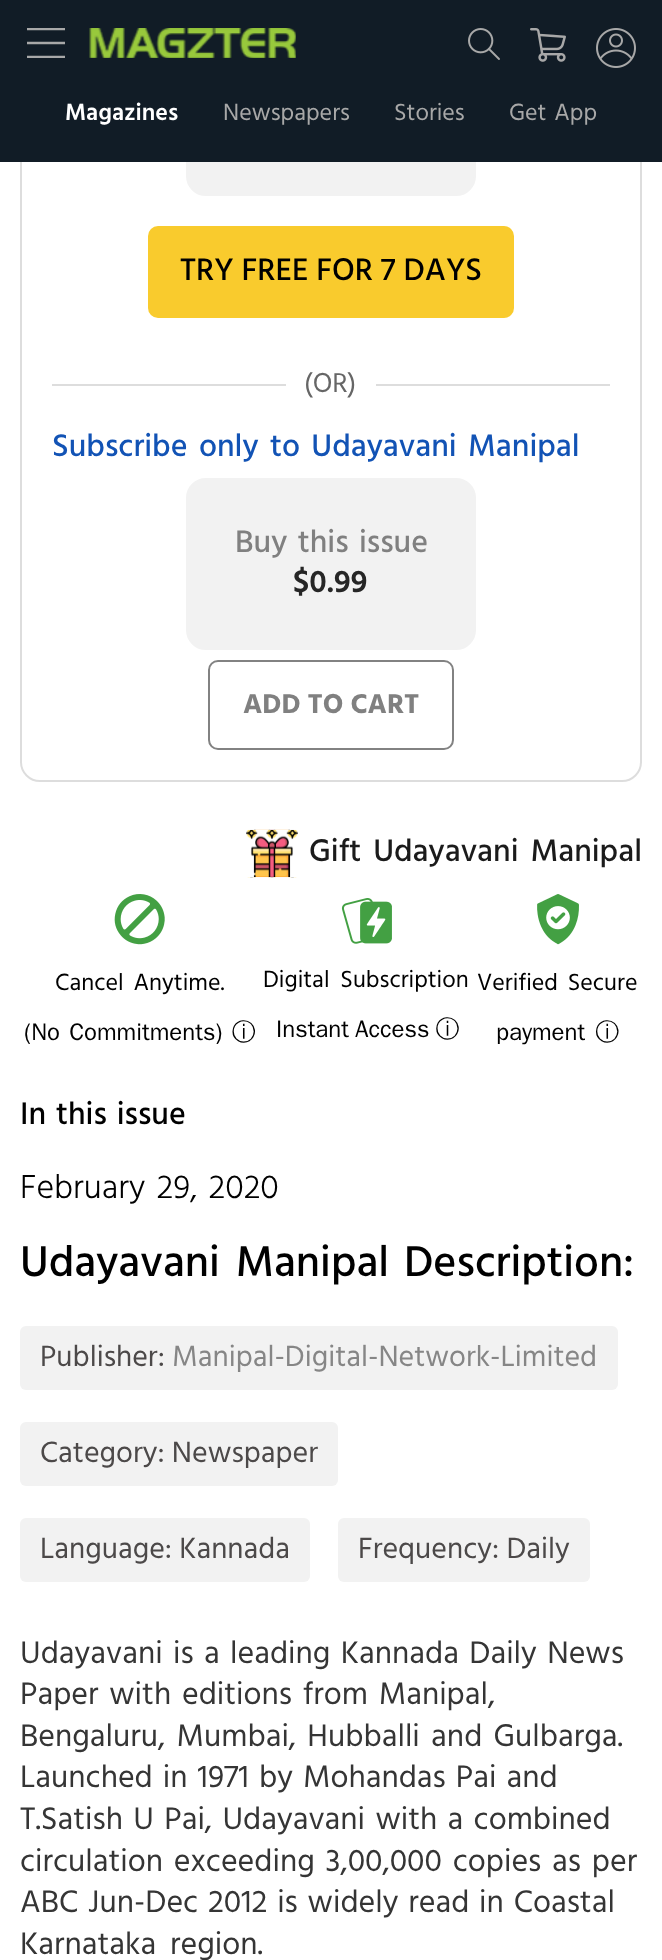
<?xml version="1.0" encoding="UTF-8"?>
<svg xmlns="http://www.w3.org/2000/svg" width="662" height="1960">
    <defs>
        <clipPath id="clip1"><rect x="26" y="28" width="40" height="30"/></clipPath>
    </defs>
    <rect width="100%" height="100%" fill="#FFFFFF"/>
    <rect x="21" y="-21" width="620" height="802" rx="19" fill="none" stroke="#DDDDDD" stroke-width="2"/>
    <rect x="187" y="23" width="288" height="172" rx="19" fill="#F2F2F2" stroke="#F2F2F2" stroke-width="2"/>
    <rect x="0" y="0" width="662" height="162" fill="#111C26"/>
    <g clip-path="url(#clip1)">
        <path d="M 27 29 H 65" fill="none" stroke="#A8A8A8" stroke-width="2.5"/>
    </g>
    <path d="M 27 43 H 65" fill="none" stroke="#A8A8A8" stroke-width="2.5"/>
    <g clip-path="url(#clip1)">
        <path d="M 27 57 H 65" fill="none" stroke="#A8A8A8" stroke-width="2.5"/>
    </g>
    <image x="89" y="28" width="207" height="30" href="img_01.png"/>
    <image x="468" y="28" width="32" height="32" href="img_02.png"/>
    <image x="530" y="28" width="36" height="34" href="img_03.png"/>
    <image x="596" y="28" width="40" height="40" href="img_04.png"/>
    <text x="65" y="120" font-family="Hind" font-size="24" font-weight="600" fill="#FFFFFF">Magazines</text>
    <text x="223" y="120" font-family="Hind" font-size="24" fill="#A8A8A8">Newspapers</text>
    <text x="394" y="120" font-family="Hind" font-size="24" fill="#A8A8A8">Stories</text>
    <text x="509" y="120" word-spacing="2" font-family="Hind" font-size="24" fill="#A8A8A8">Get App</text>
    <rect x="148" y="226" width="366" height="92" rx="10" fill="#F9CB2D"/>
    <text x="180" y="280" font-family="Hind" font-size="32" font-weight="500" fill="#000000">TRY FREE FOR 7 DAYS</text>
    <rect x="52" y="384" width="234" height="2" fill="#DDDDDD"/>
    <text x="304" y="392" font-family="Hind" font-size="28" fill="#666666">(OR)</text>
    <rect x="376" y="384" width="234" height="2" fill="#DDDDDD"/>
    <text x="52" y="456" word-spacing="3.5" font-family="Hind" font-size="32" font-weight="500" fill="#1253B5">Subscribe only to Udayavani Manipal</text>
    <rect x="187" y="479" width="288" height="170" rx="19" fill="#F2F2F2" stroke="#F2F2F2" stroke-width="2"/>
    <text x="235" y="552" word-spacing="2.5" font-family="Hind" font-size="32" font-weight="500" fill="#808080">Buy this issue</text>
    <text x="293" y="592" font-family="Hind" font-size="32" font-weight="600" fill="#262626">$0.99</text>
    <rect x="209" y="661" width="244" height="88" rx="9" fill="none" stroke="#828282" stroke-width="2"/>
    <text x="243" y="713" font-family="Hind" font-size="28" font-weight="700" fill="#808080">ADD TO CART</text>
    <image x="246" y="829" width="52" height="49" href="img_05.png"/>
    <text x="309" y="861" word-spacing="4" font-family="Hind" font-size="32" font-weight="500" fill="#1B1B1B">Gift Udayavani Manipal</text>
    <image x="114" y="894" width="51" height="51" href="img_06.png"/>
    <text x="55" y="990" word-spacing="4" font-family="Hind" font-size="24" fill="#000000">Cancel Anytime.</text>
    <text x="24" y="1040" word-spacing="2" font-family="WenQuanYi Zen Hei" font-size="24" font-weight="500" fill="#000000">(No Commitments) ⓘ</text>
    <image x="341" y="898" width="51" height="46" href="img_07.png"/>
    <text x="263" y="987" word-spacing="5" font-family="Hind" font-size="24" fill="#000000">Digital Subscription</text>
    <text x="276" y="1037" word-spacing="-1" font-family="WenQuanYi Zen Hei" font-size="24" font-weight="500" fill="#000000">Instant Access ⓘ</text>
    <image x="537" y="894" width="42" height="51" href="img_08.png"/>
    <text x="477" y="990" word-spacing="4" font-family="Hind" font-size="24" fill="#000000">Verified Secure</text>
    <text x="496" y="1040" word-spacing="3" font-family="WenQuanYi Zen Hei" font-size="24" font-weight="500" fill="#000000">payment ⓘ</text>
    <text x="20" y="1124" word-spacing="2" font-family="Hind" font-size="32" font-weight="500" fill="#000000">In this issue</text>
    <text x="20" y="1198" word-spacing="3" font-family="Hind" font-size="34" font-weight="300" fill="#000000">February 29, 2020</text>
    <text x="20" y="1276" word-spacing="5" font-family="Hind" font-size="44" font-weight="500" fill="#000000">Udayavani Manipal</text>
    <text x="404" y="1276" font-family="Hind" font-size="44" font-weight="500" fill="#000000">Description:</text>
    <rect x="20" y="1326" width="598" height="64" rx="6" fill="#F2F2F2"/>
    <text x="40" y="1366" font-family="Hind" font-size="30" fill="#4C4949">Publisher:</text>
    <text x="172" y="1366" font-family="Hind" font-size="30" fill="#868686">Manipal-Digital-Network-Limited</text>
    <rect x="20" y="1422" width="318" height="64" rx="6" fill="#F2F2F2"/>
    <text x="40" y="1462" font-family="Hind" font-size="30" fill="#4C4949">Category: Newspaper</text>
    <rect x="20" y="1518" width="290" height="64" rx="6" fill="#F2F2F2"/>
    <text x="40" y="1558" font-family="Hind" font-size="30" fill="#4C4949">Language: Kannada</text>
    <rect x="338" y="1518" width="252" height="64" rx="6" fill="#F2F2F2"/>
    <text x="358" y="1558" font-family="Hind" font-size="30" fill="#4C4949">Frequency: Daily</text>
    <text font-family="Hind" font-size="32" fill="#353535">
        <tspan x="20" y="1663" word-spacing="2.5">Udayavani is a leading Kannada Daily News</tspan>
        <tspan x="20" y="1704" word-spacing="3">Paper with editions from Manipal,</tspan>
        <tspan x="20" y="1746" word-spacing="3.5">Bengaluru, Mumbai, Hubballi and Gulbarga.</tspan>
        <tspan x="20" y="1787" word-spacing="2.25">Launched in 1971 by Mohandas Pai and</tspan>
        <tspan x="20" y="1829" word-spacing="2.5">T.Satish U Pai, Udayavani with a combined</tspan>
        <tspan x="20" y="1871" word-spacing="3">circulation exceeding 3,00,000 copies as per</tspan>
        <tspan x="20" y="1912" word-spacing="2">ABC Jun-Dec 2012 is widely read in Coastal</tspan>
        <tspan x="20" y="1954" word-spacing="6">Karnataka region.</tspan>
    </text>
</svg>
